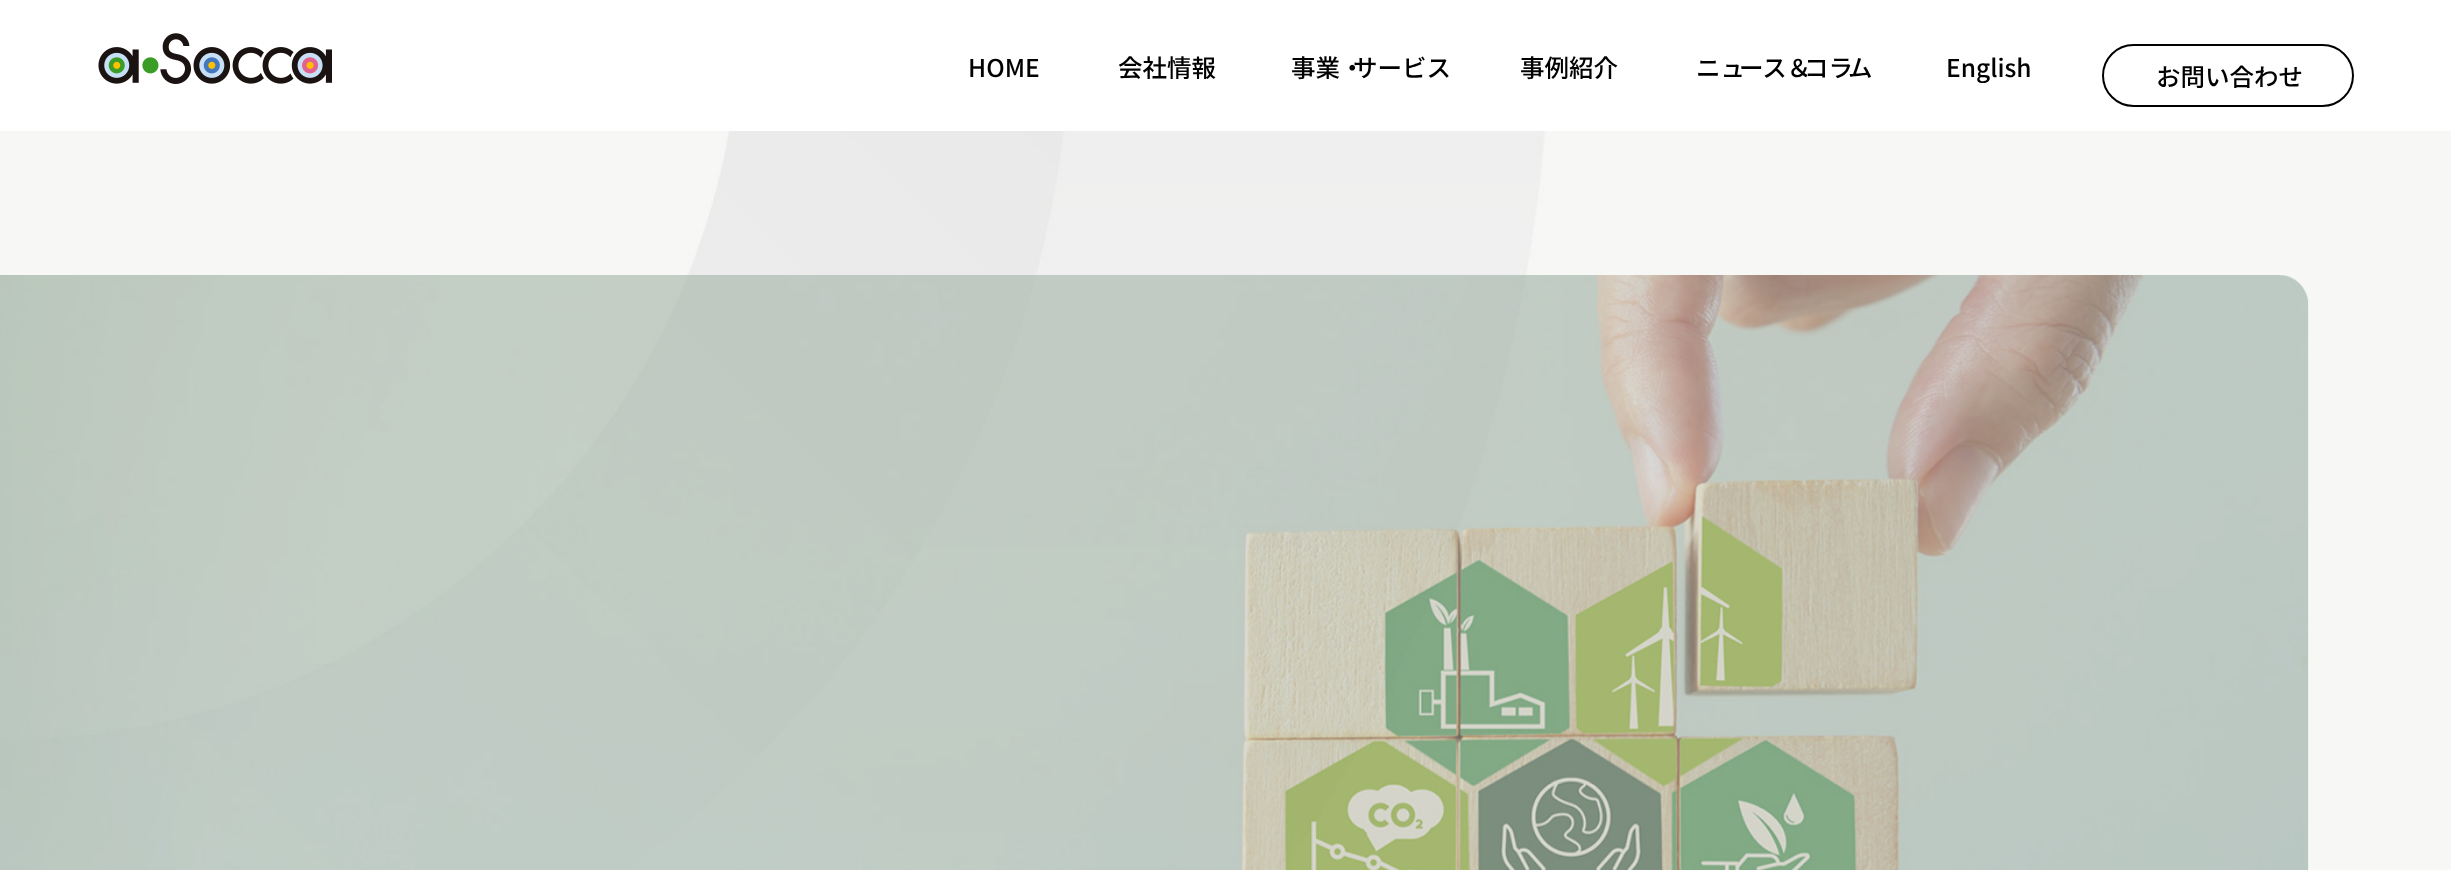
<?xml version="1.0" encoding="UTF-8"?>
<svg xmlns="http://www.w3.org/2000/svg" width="2451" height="870">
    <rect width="100%" height="100%" fill="#FFFFFF"/>
    <image x="98" y="33" width="234" height="51" href="img_01.png"/>
    <text x="968" y="77" font-family="Noto Sans JP" font-size="24.5" font-weight="500" fill="#000000">HOME</text>
    <text x="1118" y="77" font-family="Noto Sans JP" font-size="24.5" font-weight="500" fill="#000000">会社情報</text>
    <text x="1291" y="77" font-family="Noto Sans JP" font-size="24.5" font-weight="500" fill="#000000">事業・</text>
    <text x="1353" y="77" font-family="Noto Sans JP" font-size="24.5" font-weight="500" fill="#000000">サービス</text>
    <text x="1520" y="77" font-family="Noto Sans JP" font-size="24.5" font-weight="500" fill="#000000">事例紹介</text>
    <text x="1696" y="77" font-family="Noto Sans JP" font-size="24.5" font-weight="500" fill="#000000">ニュ</text>
    <text x="1739" y="77" font-family="Noto Sans JP" font-size="24.5" font-weight="500" fill="#000000">ース＆</text>
    <text x="1804" y="77" font-family="Noto Sans JP" font-size="24.5" font-weight="500" fill="#000000">コラ</text>
    <text x="1848" y="77" font-family="Noto Sans JP" font-size="24.5" font-weight="500" fill="#000000">ム</text>
    <text x="1946" y="77" font-family="Noto Sans JP" font-size="24.5" font-weight="500" fill="#000000">English</text>
    <rect x="2103" y="45" width="250" height="61" rx="30.5" fill="none" stroke="#000000" stroke-width="2"/>
    <text x="2156" y="86" font-family="Noto Sans JP" font-size="24.5" font-weight="500" fill="#000000">お問い合わせ</text>
    <image x="0" y="131" width="2451" height="739" href="img_02.png"/>
    <image x="0" y="275" width="2309" height="595" href="img_03.png"/>
</svg>
